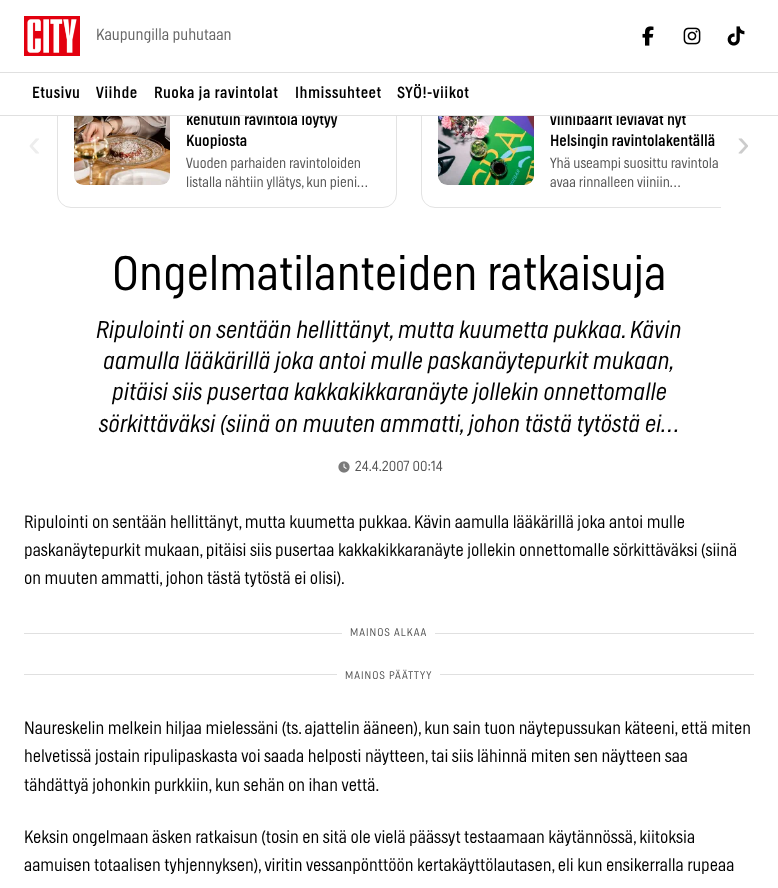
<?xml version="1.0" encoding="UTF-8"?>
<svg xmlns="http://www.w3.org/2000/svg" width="778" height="888">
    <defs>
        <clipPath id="clip1"><rect x="57" y="70" width="664" height="146"/></clipPath>
    </defs>
    <rect width="100%" height="100%" fill="#FFFFFF"/>
    <rect x="57.5" y="74.5" width="339" height="133" rx="13.5" fill="none" stroke="#E3E3E3"/>
    <rect x="74" y="89" width="96" height="96" rx="10" fill="#F2F2F2"/>
    <text x="186" y="125" font-family="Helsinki" font-size="16" fill="#000000">kehutuin ravintola löytyy</text>
    <g clip-path="url(#clip1)">
        <rect x="421.5" y="74.5" width="339" height="133" rx="13.5" fill="none" stroke="#E3E3E3"/>
    </g>
    <rect x="438" y="89" width="96" height="96" rx="10" fill="#F2F2F2"/>
    <text x="550" y="125" font-family="Helsinki" font-size="16" fill="#000000">viinibaarit leviävät nyt</text>
    <rect x="57" y="74" width="664" height="41" fill="#FFFFFF"/>
    <rect x="0" y="115" width="778" height="1" fill="#E0E0E0"/>
    <rect x="0" y="72" width="778" height="1" fill="#E0E0E0"/>
    <image x="24" y="16" width="56" height="40" href="img_01.png"/>
    <text x="96" y="40" font-family="Helsinki" font-size="16" font-weight="200" fill="#666666">Kaupungilla puhutaan</text>
    <image x="642" y="26" width="12" height="20" href="img_02.png"/>
    <image x="683" y="27" width="18" height="18" href="img_03.png"/>
    <image x="727" y="26" width="18" height="20" href="img_04.png"/>
    <text x="32" y="98" font-family="Helsinki" font-size="16" letter-spacing="0.5" fill="#000000">Etusivu</text>
    <text x="96" y="98" font-family="Helsinki" font-size="16" letter-spacing="0.5" fill="#000000">Viihde</text>
    <text x="154" y="98" font-family="Helsinki" font-size="16" letter-spacing="0.5" fill="#000000">Ruoka ja ravintolat</text>
    <text x="295" y="98" font-family="Helsinki" font-size="16" letter-spacing="0.5" fill="#000000">Ihmissuhteet</text>
    <text x="397" y="98" font-family="Helsinki" font-size="16" letter-spacing="0.5" fill="#000000">SYÖ!-viikot</text>
    <text x="28" y="156" font-family="Liberation Sans" font-size="38" fill="#EDEDED">‹</text>
    <image x="74" y="116" width="96" height="69" href="img_05.png"/>
    <text x="186" y="146" font-family="Helsinki" font-size="16" fill="#000000">Kuopiosta</text>
    <text font-family="Helsinki" font-size="14.4" font-weight="200" fill="#555555">
        <tspan x="186" y="168">Vuoden parhaiden ravintoloiden</tspan>
        <tspan x="186" y="187">listalla nähtiin yllätys, kun pieni…</tspan>
    </text>
    <image x="438" y="116" width="96" height="69" href="img_06.png"/>
    <text x="550" y="146" font-family="Helsinki" font-size="16" fill="#000000">Helsingin ravintolakentällä</text>
    <text font-family="Helsinki" font-size="14.4" font-weight="200" fill="#555555">
        <tspan x="550" y="168">Yhä useampi suosittu ravintola</tspan>
        <tspan x="550" y="187">avaa rinnalleen viiniin…</tspan>
    </text>
    <text x="737" y="156" font-family="Liberation Sans" font-size="38" fill="#CCCCCC">›</text>
    <text x="112" y="290" font-family="Helsinki" font-size="48" font-weight="200" fill="#000000">Ongelmatilanteiden ratkaisuja</text>
    <text x="96" y="338" font-family="Helsinki" font-size="24" font-weight="200" font-style="italic" fill="#000000">Ripulointi on sentään hellittänyt, mutta kuumetta pukkaa. Kävin</text>
    <text x="103" y="369" font-family="Helsinki" font-size="24" font-weight="200" font-style="italic" fill="#000000">aamulla lääkärillä joka antoi mulle paskanäytepurkit mukaan,</text>
    <text x="112" y="400" font-family="Helsinki" font-size="24" font-weight="200" font-style="italic" fill="#000000">pitäisi siis pusertaa kakkakikkaranäyte jollekin onnettomalle</text>
    <text x="99" y="432" font-family="Helsinki" font-size="24" font-weight="200" font-style="italic" fill="#000000">sörkittäväksi (siinä on muuten ammatti, johon tästä tytöstä ei…</text>
    <image x="338" y="461" width="12" height="12" href="img_07.png"/>
    <text x="355" y="471" font-family="Helsinki" font-size="14.4" font-weight="200" fill="#555555">24.4.2007 00:14</text>
    <text font-family="Helsinki" font-size="17.6" font-weight="200" fill="#000000">
        <tspan x="24" y="528">Ripulointi on sentään hellittänyt, mutta kuumetta pukkaa. Kävin aamulla lääkärillä joka antoi mulle</tspan>
        <tspan x="24" y="556">paskanäytepurkit mukaan, pitäisi siis pusertaa kakkakikkaranäyte jollekin onnettomalle sörkittäväksi (siinä</tspan>
        <tspan x="24" y="584">on muuten ammatti, johon tästä tytöstä ei olisi).</tspan>
    </text>
    <rect x="24" y="633" width="730" height="1" fill="#E0E0E0"/>
    <rect x="24" y="674" width="730" height="1" fill="#E0E0E0"/>
    <rect x="342" y="633" width="93" height="1" fill="#FFFFFF"/>
    <text x="350" y="636" font-family="Helsinki" font-size="11" font-weight="200" letter-spacing="1" fill="#555555">MAINOS ALKAA</text>
    <rect x="337" y="674" width="103" height="1" fill="#FFFFFF"/>
    <text x="345" y="679" font-family="Helsinki" font-size="11" font-weight="200" letter-spacing="1" fill="#555555">MAINOS PÄÄTTYY</text>
    <text font-family="Helsinki" font-size="17.6" font-weight="200" fill="#000000">
        <tspan x="24" y="734">Naureskelin melkein hiljaa mielessäni (ts. ajattelin ääneen), kun sain tuon näytepussukan käteeni, että miten</tspan>
        <tspan x="24" y="762">helvetissä jostain ripulipaskasta voi saada helposti näytteen, tai siis lähinnä miten sen näytteen saa</tspan>
        <tspan x="24" y="791">tähdättyä johonkin purkkiin, kun sehän on ihan vettä.</tspan>
    </text>
    <text font-family="Helsinki" font-size="17.6" font-weight="200" fill="#000000">
        <tspan x="24" y="843">Keksin ongelmaan äsken ratkaisun (tosin en sitä ole vielä päässyt testaamaan käytännössä, kiitoksia</tspan>
        <tspan x="24" y="871">aamuisen totaalisen tyhjennyksen), viritin vessanpönttöön kertakäyttölautasen, eli kun ensikerralla rupeaa</tspan>
    </text>
</svg>
